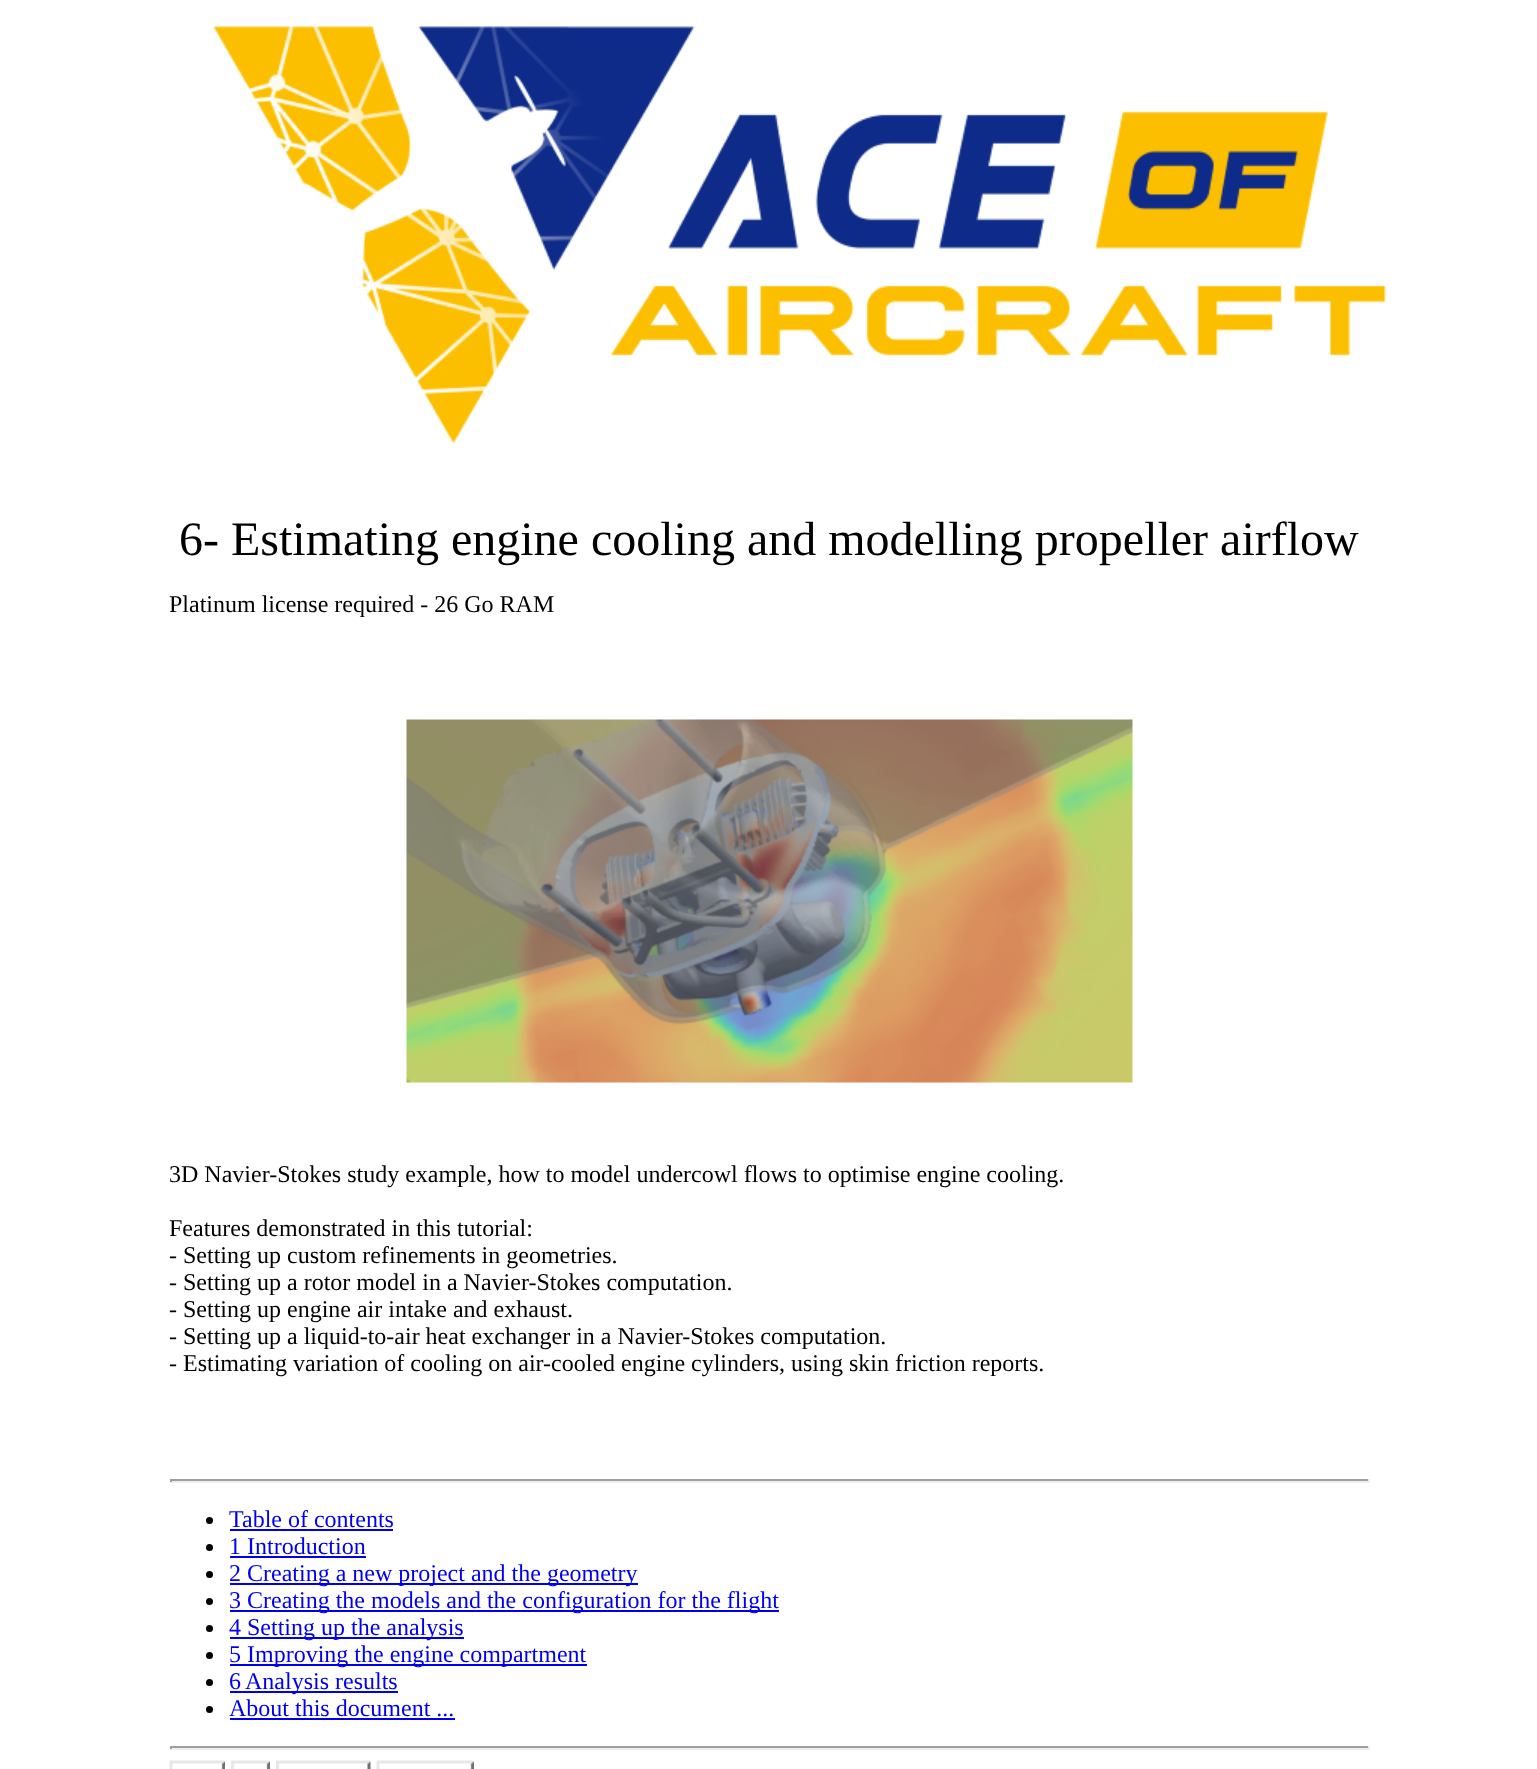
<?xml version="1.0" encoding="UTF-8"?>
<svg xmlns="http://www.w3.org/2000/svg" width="1537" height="1769">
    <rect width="100%" height="100%" fill="#FFFFFF"/>
    <image x="212" y="26" width="1175" height="418" href="img_01.png"/>
    <text x="179" y="555" font-family="Liberation Serif" font-size="48" fill="#000000">6- Estimating engine cooling and modelling propeller airflow</text>
    <text x="169" y="612" font-family="Liberation Serif" font-size="24" fill="#000000">Platinum license required - 26 Go RAM</text>
    <image x="406" y="719" width="727" height="364" href="img_02.png"/>
    <text x="169" y="1182" font-family="Liberation Serif" font-size="24" fill="#000000">3D Navier-Stokes study example, how to model undercowl flows to optimise engine cooling.</text>
    <text font-family="Liberation Serif" font-size="24" fill="#000000">
        <tspan x="169" y="1236">Features demonstrated in this tutorial:</tspan>
        <tspan x="169" y="1263">- Setting up custom refinements in geometries.</tspan>
        <tspan x="169" y="1290">- Setting up a rotor model in a Navier-Stokes computation.</tspan>
        <tspan x="169" y="1317">- Setting up engine air intake and exhaust.</tspan>
        <tspan x="169" y="1344">- Setting up a liquid-to-air heat exchanger in a Navier-Stokes computation.</tspan>
        <tspan x="169" y="1371">- Estimating variation of cooling on air-cooled engine cylinders, using skin friction reports.</tspan>
    </text>
    <rect x="170" y="1479" width="1200" height="2" fill="#9F9F9F"/>
    <rect x="1368" y="1479" width="2" height="3" fill="#EEEEEE"/>
    <rect x="170" y="1481" width="1200" height="2" fill="#EEEEEE"/>
    <rect x="170" y="1479" width="2" height="3" fill="#9F9F9F"/>
    <circle cx="209.5" cy="1520.5" r="3.5" fill="#000000"/>
    <text x="229" y="1527" font-family="Liberation Serif" font-size="24" fill="#0000EE">Table of contents</text>
    <rect x="230" y="1529" width="163" height="2" fill="#0000EE"/>
    <circle cx="209.5" cy="1547.5" r="3.5" fill="#000000"/>
    <text x="229" y="1554" font-family="Liberation Serif" font-size="24" fill="#0000EE">1 Introduction</text>
    <rect x="230" y="1556" width="136" height="2" fill="#0000EE"/>
    <circle cx="209.5" cy="1574.5" r="3.5" fill="#000000"/>
    <rect x="230" y="1583" width="408" height="2" fill="#0000EE"/>
    <text x="229" y="1581" font-family="Liberation Serif" font-size="24" fill="#0000EE">2 Creating a new project and the geometry</text>
    <circle cx="209.5" cy="1601.5" r="3.5" fill="#000000"/>
    <rect x="230" y="1610" width="549" height="2" fill="#0000EE"/>
    <text x="229" y="1608" font-family="Liberation Serif" font-size="24" fill="#0000EE">3 Creating the models and the configuration for the flight</text>
    <circle cx="209.5" cy="1628.5" r="3.5" fill="#000000"/>
    <rect x="230" y="1637" width="234" height="2" fill="#0000EE"/>
    <text x="229" y="1635" font-family="Liberation Serif" font-size="24" fill="#0000EE">4 Setting up the analysis</text>
    <circle cx="209.5" cy="1655.5" r="3.5" fill="#000000"/>
    <rect x="230" y="1664" width="357" height="2" fill="#0000EE"/>
    <text x="229" y="1662" font-family="Liberation Serif" font-size="24" fill="#0000EE">5 Improving the engine compartment</text>
    <circle cx="209.5" cy="1682.5" r="3.5" fill="#000000"/>
    <text x="229" y="1689" font-family="Liberation Serif" font-size="24" fill="#0000EE">6</text>
    <rect x="230" y="1691" width="168" height="2" fill="#0000EE"/>
    <text x="245" y="1689" font-family="Liberation Serif" font-size="24" fill="#0000EE">Analysis results</text>
    <circle cx="209.5" cy="1709.5" r="3.5" fill="#000000"/>
    <text x="229" y="1716" font-family="Liberation Serif" font-size="24" fill="#0000EE">About this document ...</text>
    <rect x="230" y="1718" width="225" height="2" fill="#0000EE"/>
    <rect x="170" y="1746" width="1200" height="2" fill="#9F9F9F"/>
    <rect x="1368" y="1746" width="2" height="3" fill="#EEEEEE"/>
    <rect x="170" y="1748" width="1200" height="2" fill="#EEEEEE"/>
    <rect x="170" y="1746" width="2" height="3" fill="#9F9F9F"/>
    <image x="169" y="1760" width="56" height="9" href="img_03.png"/>
    <image x="231" y="1760" width="39" height="9" href="img_04.png"/>
    <image x="276" y="1760" width="95" height="9" href="img_05.png"/>
    <image x="376" y="1760" width="98" height="9" href="img_06.png"/>
</svg>
